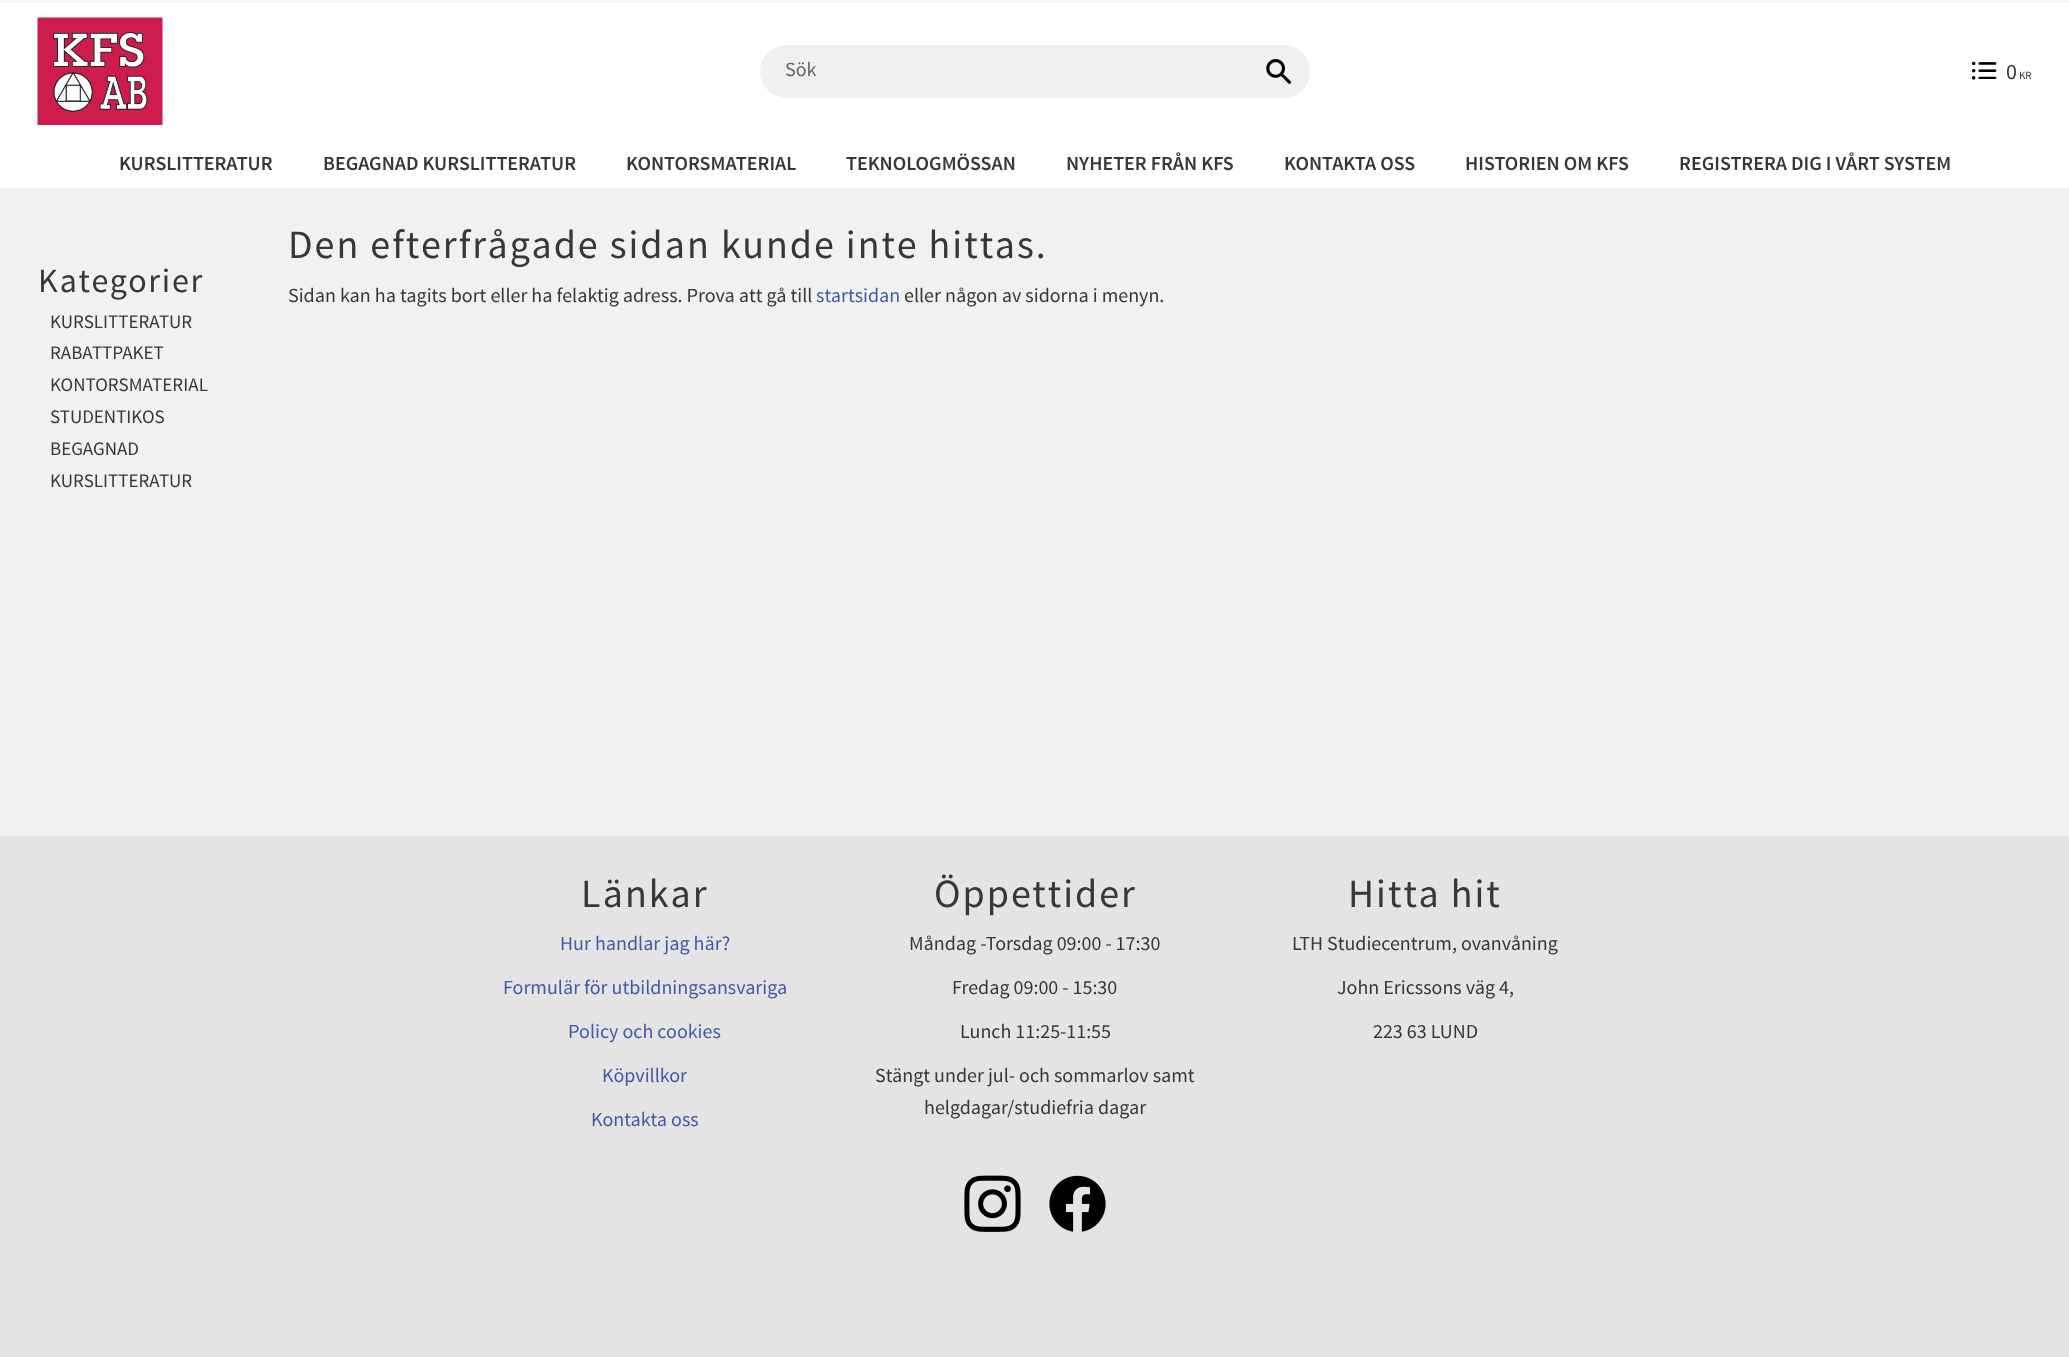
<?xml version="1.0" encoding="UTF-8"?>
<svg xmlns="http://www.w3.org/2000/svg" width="2069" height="1357">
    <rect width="100%" height="100%" fill="#F1F1F1"/>
    <rect x="0" y="3" width="2069" height="185" fill="#FFFFFF"/>
    <rect x="0" y="0" width="2069" height="3" fill="#FAFAFA"/>
    <rect x="0" y="1" width="2069" height="1" fill="#F1F1F1"/>
    <image x="37" y="17" width="126" height="108" href="img_01.png"/>
    <rect x="760" y="45" width="550" height="53" rx="26.5" fill="#F0F0F0"/>
    <text x="785" y="76" font-family="Source Sans Pro" font-size="20" fill="#646464">Sök</text>
    <rect x="1248" y="45" width="62" height="53" rx="26.5" fill="#F0F0F0"/>
    <image x="1266" y="59" width="26" height="25" href="img_02.png"/>
    <image x="1972" y="61" width="25" height="19" href="img_03.png"/>
    <text x="2006" y="79" font-family="Source Sans Pro" font-size="22" fill="#373737">0</text>
    <text x="2019" y="79" font-family="Source Sans Pro" font-size="11" fill="#373737">KR</text>
    <text x="119" y="170" font-family="Source Sans Pro" font-size="20" font-weight="600" fill="#373737">KURSLITTERATUR</text>
    <text x="323" y="170" font-family="Source Sans Pro" font-size="20" font-weight="600" fill="#373737">BEGAGNAD KURSLITTERATUR</text>
    <text x="626" y="170" font-family="Source Sans Pro" font-size="20" font-weight="600" fill="#373737">KONTORSMATERIAL</text>
    <text x="846" y="170" font-family="Source Sans Pro" font-size="20" font-weight="600" fill="#373737">TEKNOLOGMÖSSAN</text>
    <text x="1066" y="170" font-family="Source Sans Pro" font-size="20" font-weight="600" fill="#373737">NYHETER FRÅN KFS</text>
    <text x="1284" y="170" font-family="Source Sans Pro" font-size="20" font-weight="600" fill="#373737">KONTAKTA OSS</text>
    <text x="1465" y="170" font-family="Source Sans Pro" font-size="20" font-weight="600" fill="#373737">HISTORIEN OM KFS</text>
    <text x="1679" y="170" font-family="Source Sans Pro" font-size="20" font-weight="600" fill="#373737">REGISTRERA DIG I VÅRT SYSTEM</text>
    <text x="38" y="292" font-family="Source Sans Pro" font-size="34" letter-spacing="1.75" fill="#373737">Kategorier</text>
    <text font-family="Source Sans Pro" font-size="19" fill="#373737">
        <tspan x="50" y="328">KURSLITTERATUR</tspan>
        <tspan x="50" y="359">RABATTPAKET</tspan>
        <tspan x="50" y="391">KONTORSMATERIAL</tspan>
        <tspan x="50" y="423">STUDENTIKOS</tspan>
        <tspan x="50" y="455">BEGAGNAD</tspan>
        <tspan x="50" y="487">KURSLITTERATUR</tspan>
    </text>
    <text x="288" y="258" font-family="Source Sans Pro" font-size="40" letter-spacing="2" fill="#373737">Den efterfrågade sidan kunde inte hittas.</text>
    <text x="288" y="302" font-family="Source Sans Pro" font-size="20" fill="#373737">Sidan kan ha tagits bort eller ha felaktig adress. Prova att gå till</text>
    <text x="816" y="302" font-family="Source Sans Pro" font-size="20" fill="#405AA7">startsidan</text>
    <text x="904" y="302" font-family="Source Sans Pro" font-size="20" fill="#373737">eller någon av sidorna i menyn.</text>
    <rect x="0" y="836" width="2069" height="521" fill="#E4E4E4"/>
    <text x="581" y="907" font-family="Source Sans Pro" font-size="40" letter-spacing="2" fill="#373737">Länkar</text>
    <text x="560" y="950" font-family="Source Sans Pro" font-size="20" fill="#405AA7">Hur handlar jag här?</text>
    <text x="503" y="994" font-family="Source Sans Pro" font-size="20" fill="#405AA7">Formulär för utbildningsansvariga</text>
    <text x="568" y="1038" font-family="Source Sans Pro" font-size="20" fill="#405AA7">Policy och cookies</text>
    <text x="602" y="1082" font-family="Source Sans Pro" font-size="20" fill="#405AA7">Köpvillkor</text>
    <text x="591" y="1126" font-family="Source Sans Pro" font-size="20" fill="#405AA7">Kontakta oss</text>
    <text x="934" y="907" font-family="Source Sans Pro" font-size="40" letter-spacing="2" fill="#373737">Öppettider</text>
    <text x="909" y="950" font-family="Source Sans Pro" font-size="20" fill="#373737">Måndag -Torsdag 09:00 - 17:30</text>
    <text x="952" y="994" font-family="Source Sans Pro" font-size="20" fill="#373737">Fredag 09:00 - 15:30</text>
    <text x="960" y="1038" font-family="Source Sans Pro" font-size="20" fill="#373737">Lunch 11:25-11:55</text>
    <text x="875" y="1082" font-family="Source Sans Pro" font-size="20" fill="#373737">Stängt under jul- och sommarlov samt</text>
    <text x="924" y="1114" font-family="Source Sans Pro" font-size="20" fill="#373737">helgdagar/studiefria dagar</text>
    <text x="1348" y="907" font-family="Source Sans Pro" font-size="40" letter-spacing="2" fill="#373737">Hitta hit</text>
    <text x="1292" y="950" font-family="Source Sans Pro" font-size="20" fill="#373737">LTH Studiecentrum, ovanvåning</text>
    <text x="1337" y="994" font-family="Source Sans Pro" font-size="20" fill="#373737">John Ericssons väg 4,</text>
    <text x="1373" y="1038" font-family="Source Sans Pro" font-size="20" fill="#373737">223 63 LUND</text>
    <image x="964" y="1175" width="57" height="57" href="img_04.png"/>
    <image x="1049" y="1175" width="57" height="57" href="img_05.png"/>
</svg>
